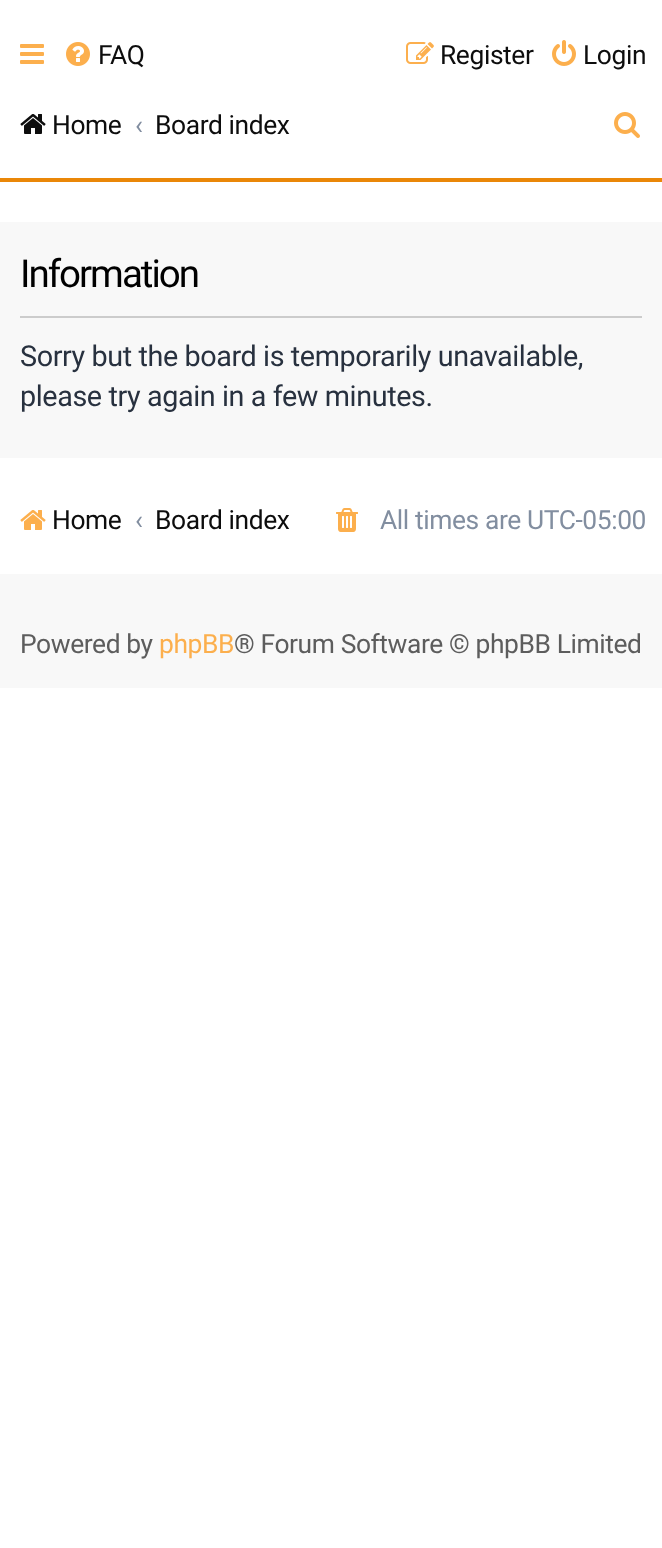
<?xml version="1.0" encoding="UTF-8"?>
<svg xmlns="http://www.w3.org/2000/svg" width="662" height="1548">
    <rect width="100%" height="100%" fill="#FFFFFF"/>
    <rect x="0" y="178" width="662" height="4" fill="#EA8708"/>
    <image x="20" y="44" width="24" height="20" href="img_01.png"/>
    <image x="66" y="42" width="24" height="24" href="img_02.png"/>
    <text x="98" y="64" font-family="Roboto" font-size="26.4" letter-spacing="-0.4" fill="#0D0D0D">FAQ</text>
    <image x="406" y="42" width="28" height="22" href="img_03.png"/>
    <text x="440" y="64" font-family="Roboto" font-size="26.4" letter-spacing="-0.4" fill="#0D0D0D">Register</text>
    <image x="552" y="40" width="24" height="26" href="img_04.png"/>
    <text x="583" y="64" font-family="Roboto" font-size="26.4" letter-spacing="-0.4" fill="#0D0D0D">Login</text>
    <image x="20" y="114" width="26" height="20" href="img_05.png"/>
    <text x="52" y="134" font-family="Roboto" font-size="26.4" letter-spacing="-0.4" fill="#0D0D0D">Home</text>
    <text x="135" y="134" font-family="Roboto" font-size="26.4" letter-spacing="-0.4" fill="#828EA0">‹</text>
    <text x="155" y="134" font-family="Roboto" font-size="26.4" letter-spacing="-0.4" fill="#0D0D0D">Board index</text>
    <image x="614" y="112" width="26" height="26" href="img_06.png"/>
    <rect x="0" y="222" width="662" height="236" fill="#F8F8F8"/>
    <rect x="20" y="316" width="622" height="2" fill="#CCCCCC"/>
    <text x="20" y="287" font-family="Roboto" font-size="38.5" letter-spacing="-2" fill="#000000">Information</text>
    <text font-family="Roboto" font-size="28.75" letter-spacing="-0.4" fill="#28313F">
        <tspan x="20" y="366">Sorry but the board is temporarily unavailable,</tspan>
        <tspan x="20" y="406">please try again in a few minutes.</tspan>
    </text>
    <image x="20" y="510" width="26" height="20" href="img_07.png"/>
    <text x="52" y="529" font-family="Roboto" font-size="26.4" letter-spacing="-0.4" fill="#0D0D0D">Home</text>
    <text x="135" y="529" font-family="Roboto" font-size="26.4" letter-spacing="-0.4" fill="#828EA0">‹</text>
    <text x="155" y="529" font-family="Roboto" font-size="26.4" letter-spacing="-0.4" fill="#0D0D0D">Board index</text>
    <image x="336" y="508" width="22" height="24" href="img_08.png"/>
    <text x="380" y="529" font-family="Roboto" font-size="26.4" letter-spacing="-0.4" fill="#828EA0">All times are UTC-05:00</text>
    <rect x="0" y="574" width="662" height="114" fill="#F8F8F8"/>
    <text x="20" y="653" font-family="Roboto" font-size="26.4" letter-spacing="-0.4" fill="#5D5D5D">Powered by</text>
    <text x="159" y="653" font-family="Roboto" font-size="26.4" letter-spacing="-0.4" fill="#FCAF4D">phpBB</text>
    <text x="234" y="653" font-family="Roboto" font-size="26.4" letter-spacing="-0.4" fill="#5D5D5D">® Forum Software © phpBB Limited</text>
</svg>
